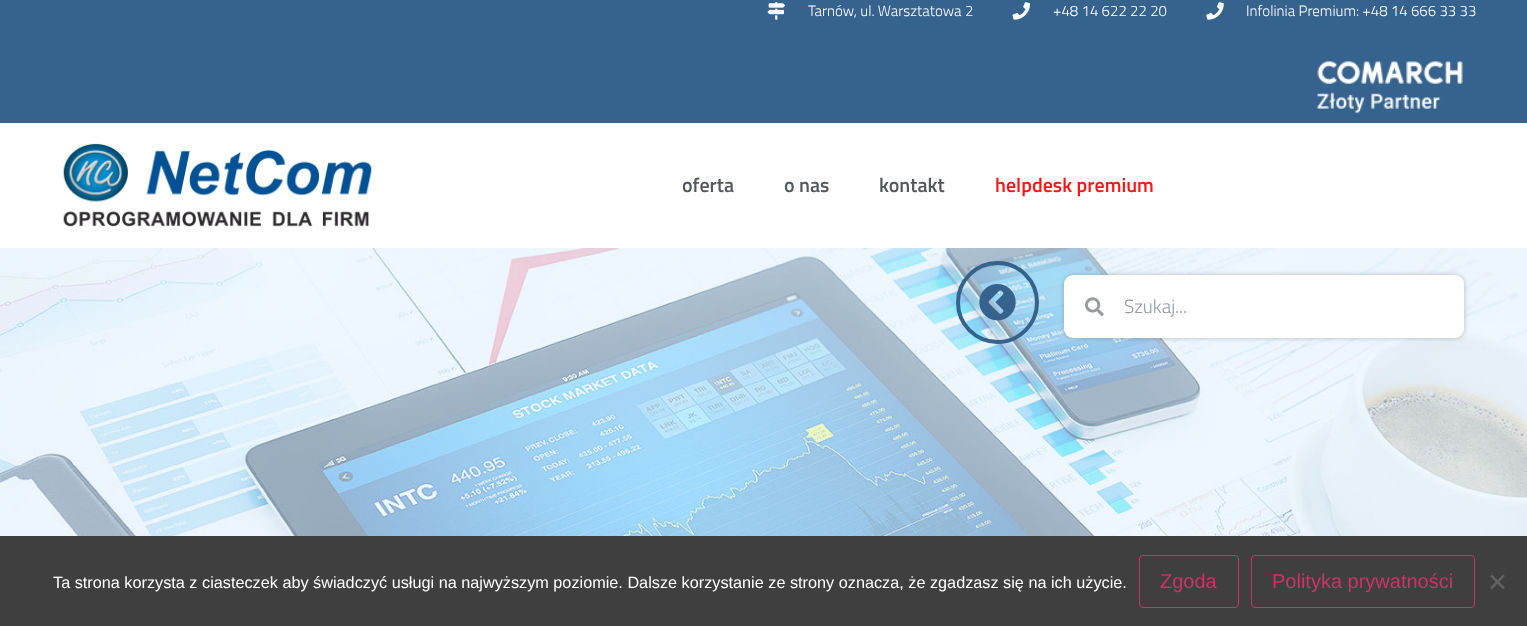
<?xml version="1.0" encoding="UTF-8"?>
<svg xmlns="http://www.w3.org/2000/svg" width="1527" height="626">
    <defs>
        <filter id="blur1" x="-50%" y="-200%" width="200%" height="500%"><feGaussianBlur stdDeviation="2.5"/></filter>
    </defs>
    <rect width="100%" height="100%" fill="#FFFFFF"/>
    <rect x="0" y="0" width="1527" height="123" fill="#36638D"/>
    <image x="767" y="2" width="18" height="18" href="img_01.png"/>
    <text x="808" y="16" font-family="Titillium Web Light" font-size="15" font-weight="300" fill="#FFFFFF">Tarnów, ul. Warsztatowa 2</text>
    <image x="1012" y="2" width="18" height="18" href="img_02.png"/>
    <text x="1053" y="16" font-family="Titillium Web Light" font-size="15" font-weight="300" fill="#FFFFFF">+48 14 622 22 20</text>
    <image x="1206" y="2" width="18" height="18" href="img_03.png"/>
    <text x="1246" y="16" font-family="Titillium Web Light" font-size="15" font-weight="300" fill="#FFFFFF">Infolinia Premium: +48 14 666 33 33</text>
    <image x="1317" y="61" width="146" height="53" href="img_04.png"/>
    <image x="63" y="143" width="309" height="84" href="img_05.png"/>
    <text x="682" y="192" font-family="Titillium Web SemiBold" font-size="20" font-weight="600" fill="#54595F">oferta</text>
    <text x="784" y="192" font-family="Titillium Web SemiBold" font-size="20" font-weight="600" fill="#54595F">o nas</text>
    <text x="879" y="192" font-family="Titillium Web SemiBold" font-size="20" font-weight="600" fill="#54595F">kontakt</text>
    <text x="995" y="192" font-family="Titillium Web SemiBold" font-size="20" font-weight="600" fill="#FF1616">helpdesk premium</text>
    <image x="0" y="248" width="1527" height="117" href="img_06.png"/>
    <circle cx="997.5" cy="302.5" r="39.5" fill="none" stroke="#36638D" stroke-width="4"/>
    <image x="979" y="284" width="37" height="37" href="img_07.png"/>
    <rect x="1064" y="275" width="400" height="63" rx="9" fill="#7A7A7A" fill-opacity="0.5" filter="url(#blur1)"/>
    <rect x="1064" y="275" width="400" height="63" rx="9" fill="#FFFFFF"/>
    <image x="1085" y="297" width="19" height="19" href="img_08.png"/>
    <text x="1124" y="313" font-family="Titillium Web Light" font-size="19" font-weight="300" fill="#989B9F">Szukaj...</text>
    <image x="0" y="365" width="1527" height="171" href="img_09.png"/>
    <rect x="0" y="536" width="1527" height="90" fill="#3F3F3F"/>
    <text x="53" y="588" font-family="Liberation Sans" font-size="16.25" fill="#FFFFFF">Ta strona korzysta z ciasteczek aby świadczyć usługi na najwyższym poziomie. Dalsze korzystanie ze strony oznacza, że zgadzasz się na ich użycie.</text>
    <rect x="1139.5" y="555.5" width="99" height="52" rx="3.5" fill="none" stroke="#CC3366"/>
    <text x="1160" y="588" font-family="Liberation Sans" font-size="20" fill="#CC3366">Zgoda</text>
    <rect x="1251.5" y="555.5" width="223" height="52" rx="3.5" fill="none" stroke="#CC3366"/>
    <text x="1272" y="588" font-family="Liberation Sans" font-size="20" fill="#CC3366">Polityka prywatności</text>
    <path d="M 1503 574.5 L 1505 576 L 1492 589.5 L 1490 587.5 Z" fill="#606060"/>
    <path d="M 1490 576 L 1492 574.5 L 1505 587.5 L 1503 589.5 Z" fill="#606060"/>
</svg>
